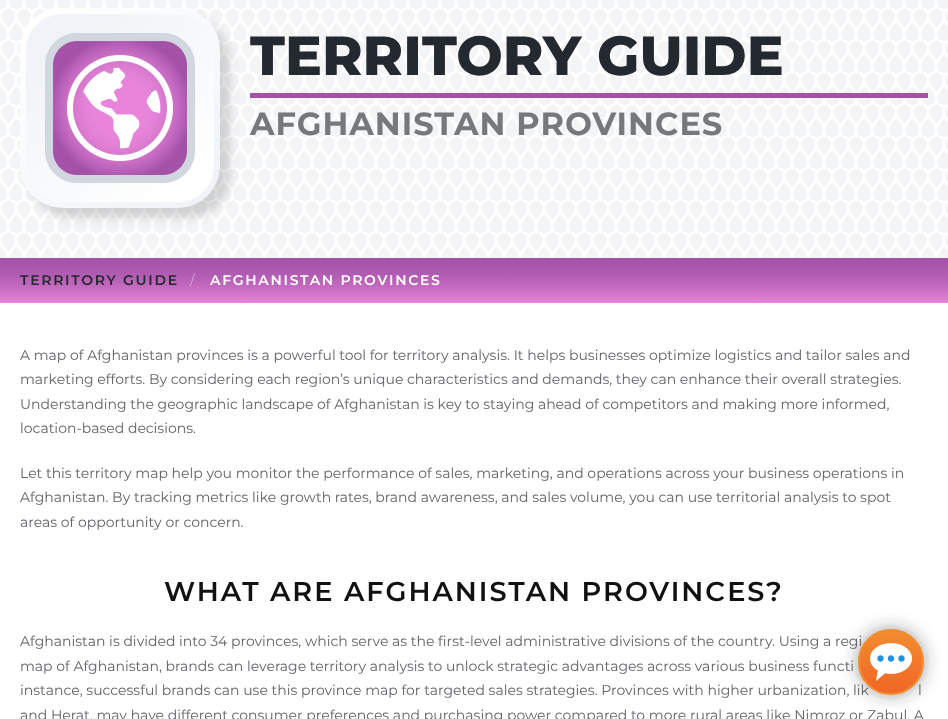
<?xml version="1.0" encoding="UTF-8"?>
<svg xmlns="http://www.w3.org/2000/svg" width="948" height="719">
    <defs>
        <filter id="blur1" x="-50%" y="-200%" width="200%" height="500%"><feGaussianBlur stdDeviation="5"/></filter>
        <linearGradient id="g1" gradientUnits="userSpaceOnUse" x1="474" y1="258" x2="474" y2="303"><stop offset="0" stop-color="#A352A8"/><stop offset="1" stop-color="#E885DA"/></linearGradient>
        <linearGradient id="g2" gradientUnits="userSpaceOnUse" x1="474" y1="258" x2="474" y2="303"><stop offset="0" stop-color="#A352A8" stop-opacity="0.7"/><stop offset="1" stop-color="#A352A8" stop-opacity="0"/></linearGradient>
        <filter id="blur2" x="-50%" y="-200%" width="200%" height="500%"><feGaussianBlur stdDeviation="8.5"/></filter>
    </defs>
    <rect width="100%" height="100%" fill="#FFFFFF"/>
    <image x="0" y="0" width="948" height="258" href="img_01.png"/>
    <rect x="30" y="18" width="200" height="200" rx="42" fill="#000000" fill-opacity="0.15" filter="url(#blur1)"/>
    <image x="20" y="8" width="200" height="200" href="img_02.png"/>
    <text x="250" y="75" font-family="Montserrat" font-size="55" font-weight="100" fill="#24292F">TERRITORY GUIDE</text>
    <rect x="250" y="93" width="678" height="5" fill="#A352A8"/>
    <text x="250" y="135" font-family="'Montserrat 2'" font-size="32" font-weight="100" letter-spacing="1" fill="#76797C">AFGHANISTAN PROVINCES</text>
    <rect x="0" y="258" width="948" height="45" fill="url(#g1)"/>
    <rect x="0" y="260" width="948" height="41" fill="url(#g2)"/>
    <text x="20" y="285" font-family="'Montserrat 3'" font-size="14" font-weight="100" letter-spacing="1.7" fill="#24292F">TERRITORY GUIDE</text>
    <text x="190" y="285" font-family="'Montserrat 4'" font-size="14" font-weight="100" fill="#D9A9D8">/</text>
    <text x="210" y="285" font-family="'Montserrat 3'" font-size="14" font-weight="100" letter-spacing="1.7" fill="#FFFFFF">AFGHANISTAN PROVINCES</text>
    <text font-family="'Montserrat 4'" font-size="14" font-weight="100" fill="#606266">
        <tspan x="20" y="360">A map of Afghanistan provinces is a powerful tool for territory analysis. It helps businesses optimize logistics and tailor sales and</tspan>
        <tspan x="20" y="384">marketing efforts. By considering each region’s unique characteristics and demands, they can enhance their overall strategies.</tspan>
        <tspan x="20" y="409">Understanding the geographic landscape of Afghanistan is key to staying ahead of competitors and making more informed,</tspan>
        <tspan x="20" y="433">location-based decisions.</tspan>
    </text>
    <text font-family="'Montserrat 4'" font-size="14" font-weight="100" fill="#606266">
        <tspan x="20" y="478">Let this territory map help you monitor the performance of sales, marketing, and operations across your business operations in</tspan>
        <tspan x="20" y="502">Afghanistan. By tracking metrics like growth rates, brand awareness, and sales volume, you can use territorial analysis to spot</tspan>
        <tspan x="20" y="527">areas of opportunity or concern.</tspan>
    </text>
    <text x="164" y="601" font-family="'Montserrat 3'" font-size="27.2" font-weight="100" letter-spacing="2" fill="#111111">WHAT ARE AFGHANISTAN PROVINCES?</text>
    <text font-family="'Montserrat 4'" font-size="14" font-weight="100" fill="#606266">
        <tspan x="20" y="646">Afghanistan is divided into 34 provinces, which serve as the first-level administrative divisions of the country. Using a regi</tspan>
        <tspan x="20" y="671">map of Afghanistan, brands can leverage territory analysis to unlock strategic advantages across various business functi</tspan>
        <tspan x="20" y="695">instance, successful brands can use this province map for targeted sales strategies. Provinces with higher urbanization, lik</tspan>
    </text>
    <text x="918" y="695" font-family="'Montserrat 4'" font-size="14" font-weight="100" fill="#606266">l</text>
    <text x="20" y="720" font-family="'Montserrat 4'" font-size="14" font-weight="100" fill="#606266">and Herat, may have different consumer preferences and purchasing power compared to more rural areas like Nimroz or Zabul. A</text>
    <rect x="858" y="629" width="66" height="66" rx="33" fill="#323232" fill-opacity="0.5" filter="url(#blur2)"/>
    <image x="859" y="630" width="64" height="64" href="img_03.png"/>
    <circle cx="891" cy="662" r="32" fill="none" stroke="#F38C2F" stroke-width="2"/>
</svg>
